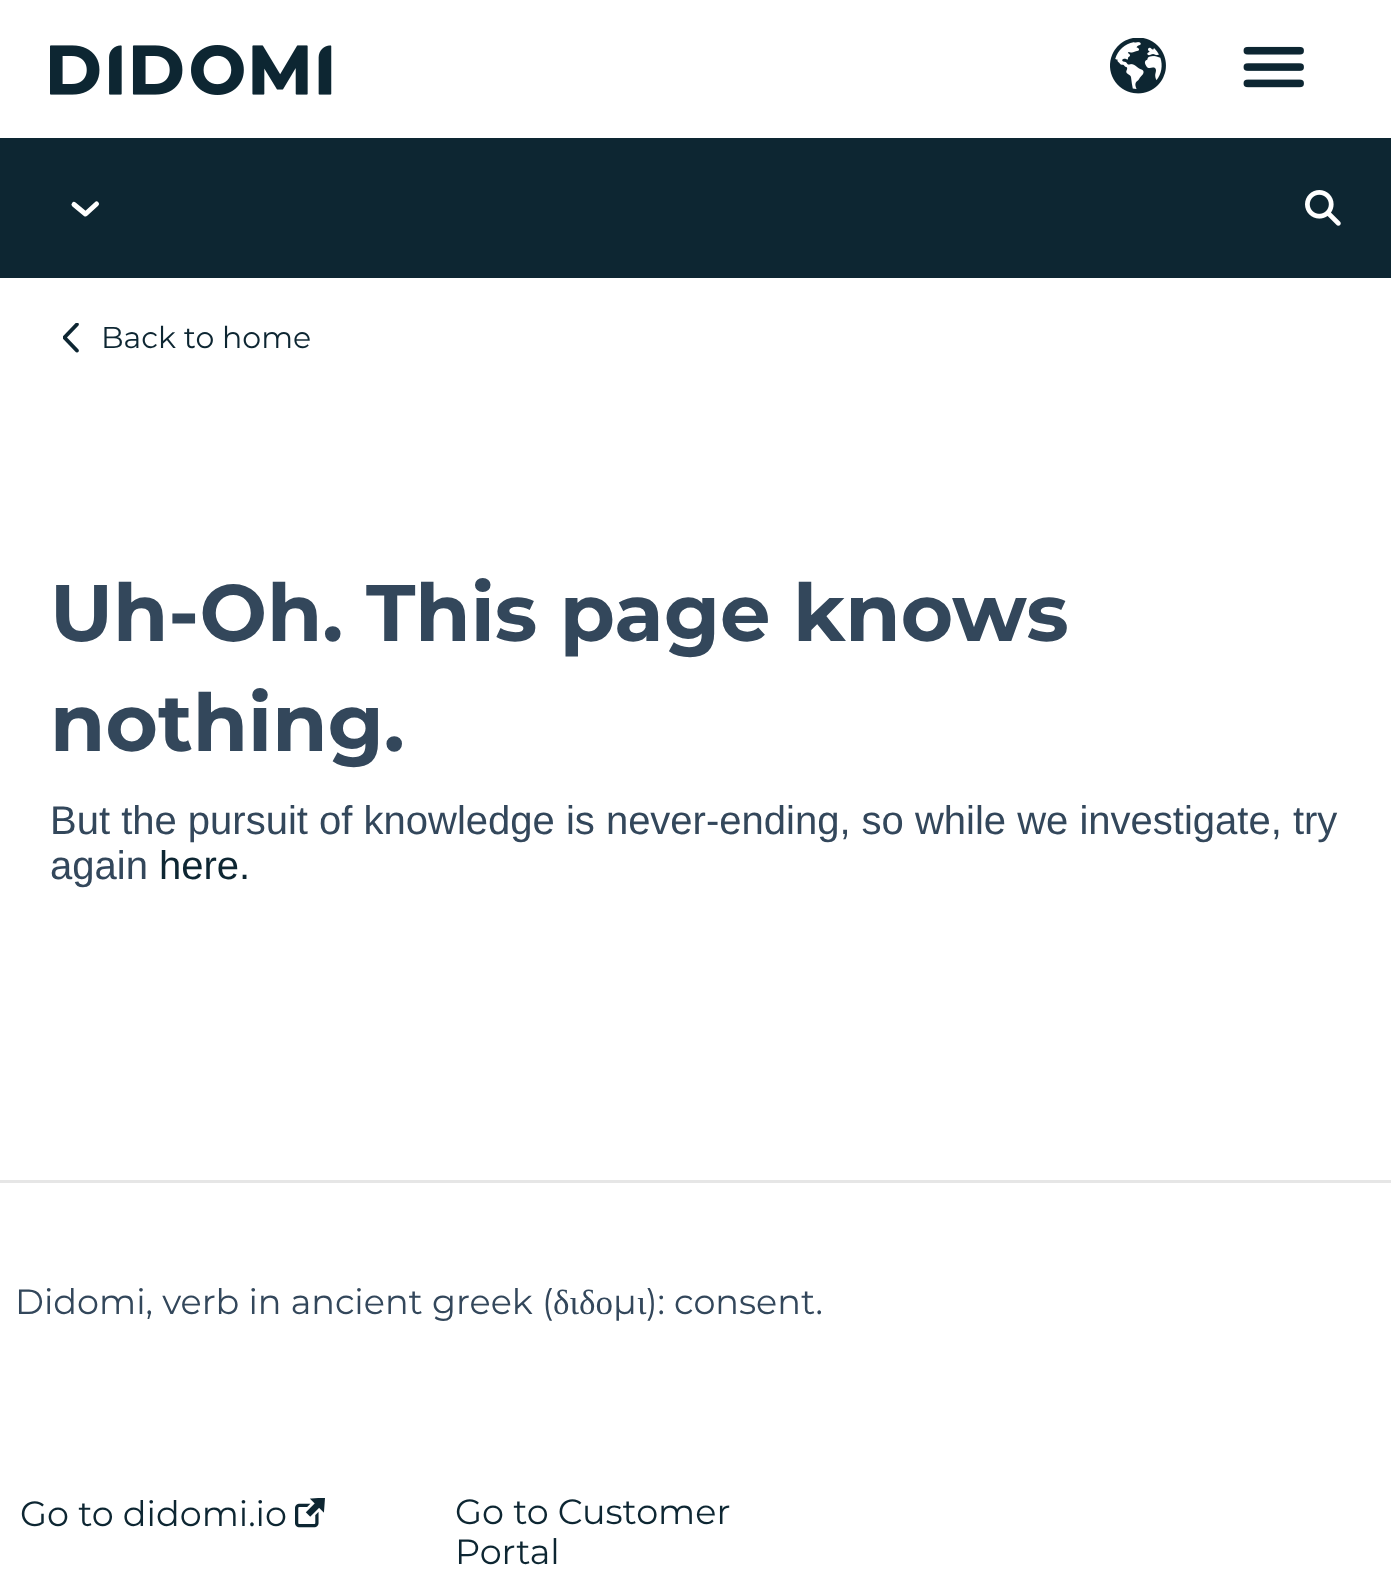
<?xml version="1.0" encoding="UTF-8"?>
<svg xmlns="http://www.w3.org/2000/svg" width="1391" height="1572">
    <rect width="100%" height="100%" fill="#FFFFFF"/>
    <image x="50" y="45" width="282" height="50" href="img_01.png"/>
    <image x="1110" y="38" width="56" height="56" href="img_02.png"/>
    <image x="1243" y="46" width="61" height="42" href="img_03.png"/>
    <rect x="0" y="138" width="1391" height="140" fill="#0D2632"/>
    <path d="M 96.5 204 L 85.5 214 L 74 204.5" fill="none" stroke="#FFFFFF" stroke-width="5" stroke-linecap="round" stroke-linejoin="round"/>
    <image x="1305" y="190" width="36" height="36" href="img_04.png"/>
    <image x="63" y="323" width="16" height="30" href="img_05.png"/>
    <text x="101" y="348" font-family="Montserrat" font-size="30" fill="#0D2632">Back to home</text>
    <text font-family="Montserrat" font-size="80" font-weight="700" fill="#33475B">
        <tspan x="50" y="641">Uh-Oh. This page knows</tspan>
        <tspan x="50" y="751">nothing.</tspan>
    </text>
    <text font-family="Liberation Sans" font-size="40" fill="#33475B">
        <tspan x="50" y="834">But the pursuit of knowledge is never-ending, so while we investigate, try</tspan>
        <tspan x="50" y="879">again</tspan>
    </text>
    <text x="159" y="879" font-family="Liberation Sans" font-size="40" fill="#0D2632">here.</text>
    <rect x="0" y="1180" width="1391" height="3" fill="#E6E6E6"/>
    <text x="15" y="1314" font-family="Montserrat" font-size="35" fill="#33475B">Didomi, verb in ancient greek (</text>
    <text x="553" y="1314" font-family="Liberation Serif" font-size="35" fill="#33475B">δ‌‌ιδο‌</text>
    <text x="613" y="1314" font-family="Montserrat" font-size="35" fill="#33475B">μ ): consent.</text>
    <text x="637" y="1314" font-family="Liberation Serif" font-size="35" fill="#33475B">ι</text>
    <text x="20" y="1526" font-family="Montserrat" font-size="35" fill="#0D2632">Go to didomi.io</text>
    <image x="295" y="1498" width="30" height="30" href="img_06.png"/>
    <text font-family="Montserrat" font-size="35" fill="#0D2632">
        <tspan x="455" y="1524">Go to Customer</tspan>
        <tspan x="455" y="1564">Portal</tspan>
    </text>
</svg>
